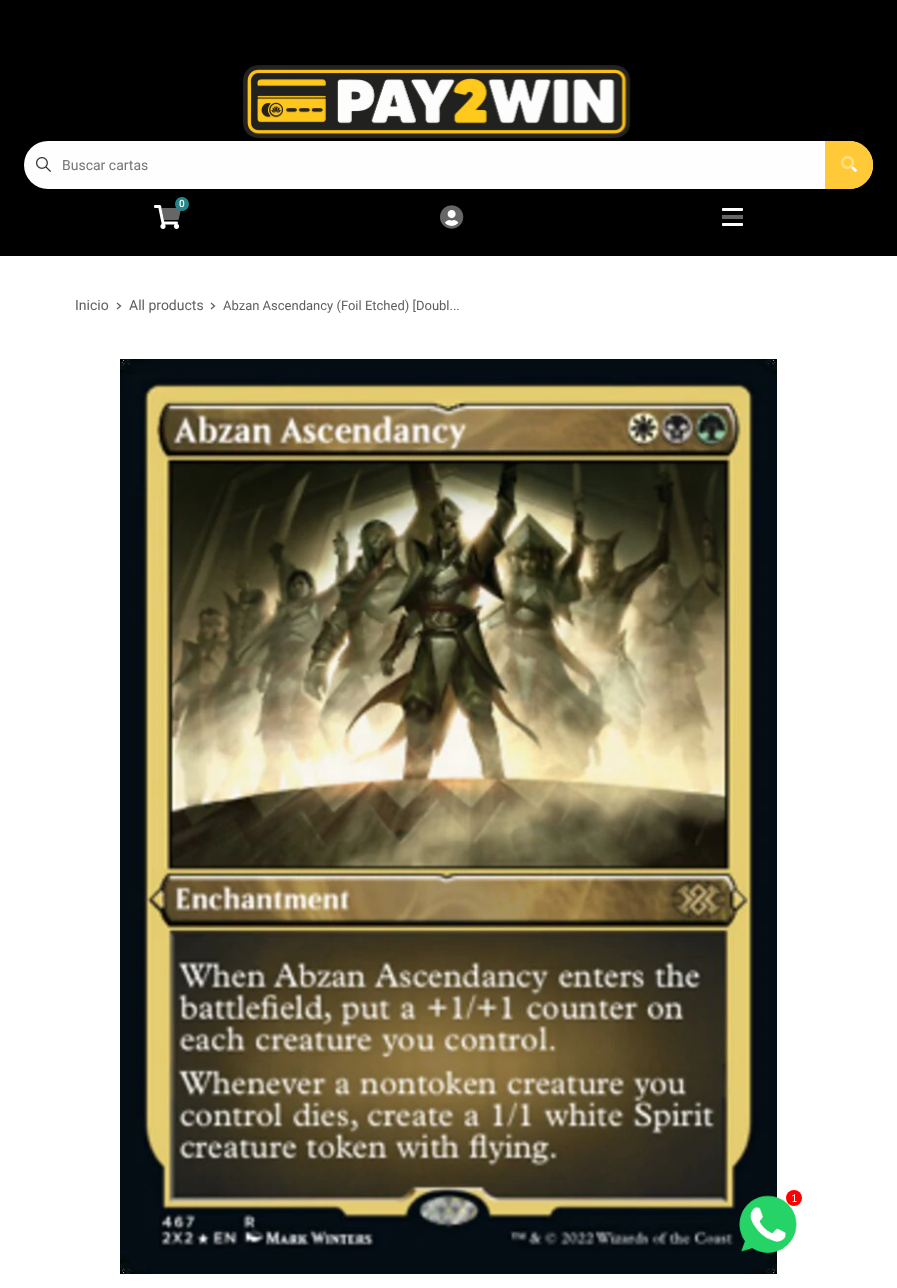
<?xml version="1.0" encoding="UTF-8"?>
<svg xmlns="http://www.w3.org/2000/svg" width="897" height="1288">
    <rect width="100%" height="100%" fill="#FFFFFF"/>
    <rect x="0" y="0" width="897" height="256" fill="#000000"/>
    <image x="243" y="65" width="388" height="74" href="img_01.png"/>
    <rect x="24" y="141" width="849" height="48" rx="24" fill="#FEFEFE"/>
    <image x="36" y="157" width="15" height="15" href="img_02.png"/>
    <text x="62" y="170" font-family="Roboto" font-size="14" fill="#757575">Buscar cartas</text>
    <path d="M 825 141 H 849 C 862.5 141 873 151.5 873 165 C 873 178.5 862.5 189 849 189 H 825 Z" fill="#FFC938"/>
    <image x="851" y="166" width="6" height="6" href="img_04.png"/>
    <image x="841" y="156" width="13" height="13" href="img_03.png"/>
    <image x="154" y="205" width="26" height="24" href="img_05.png"/>
    <image x="161" y="208" width="20" height="12" href="img_06.png"/>
    <circle cx="182" cy="204" r="7" fill="#25878C"/>
    <text x="179" y="207" font-family="Roboto" font-size="10" font-weight="500" fill="#FFFFFF">0</text>
    <image x="444" y="209" width="15" height="17" href="img_08.png"/>
    <image x="440" y="205" width="24" height="24" href="img_07.png"/>
    <image x="722" y="208" width="21" height="18" href="img_09.png"/>
    <rect x="722" y="215" width="21" height="4" fill="#666666"/>
    <text x="75" y="310" font-family="Roboto" font-size="14" fill="#5F5F5F">Inicio</text>
    <path d="M 117.5 303.5 L 120.5 306 L 117.5 308.5" fill="none" stroke="#5F5F5F" stroke-width="1.3" stroke-linecap="square"/>
    <text x="129" y="310" font-family="Roboto" font-size="14" fill="#5F5F5F">All products</text>
    <path d="M 211.5 303.5 L 214.5 306 L 211.5 308.5" fill="none" stroke="#5F5F5F" stroke-width="1.3" stroke-linecap="square"/>
    <text x="223" y="310" font-family="Roboto" font-size="13" fill="#5F5F5F">Abzan Ascendancy (Foil Etched) [Doubl...</text>
    <image x="120" y="359" width="657" height="915" href="img_10.png"/>
    <image x="739" y="1195" width="58" height="58" href="img_11.png"/>
    <circle cx="794" cy="1198" r="8" fill="#FF0000"/>
    <text x="792" y="1202" font-family="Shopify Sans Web" font-size="11" fill="#FFFFFF">1</text>
</svg>
